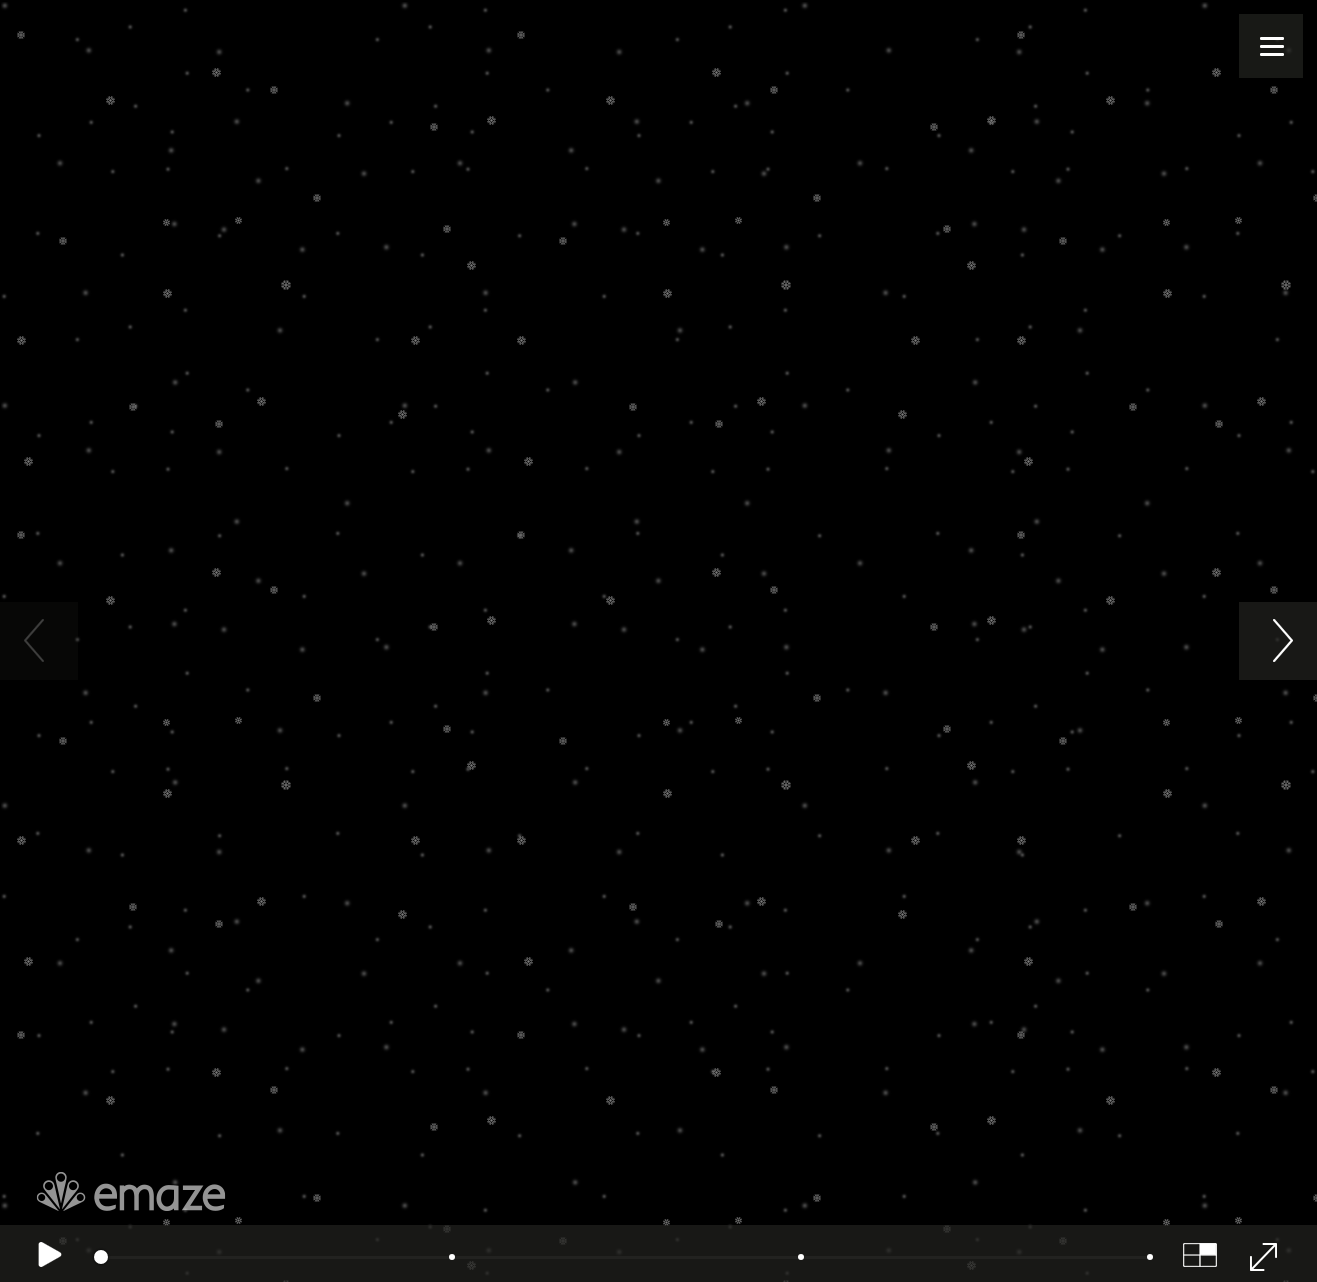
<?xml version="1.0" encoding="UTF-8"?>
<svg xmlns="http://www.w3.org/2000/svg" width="1317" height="1282">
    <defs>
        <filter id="blur1" x="-50%" y="-200%" width="200%" height="500%"><feGaussianBlur stdDeviation="1.5"/></filter>
    </defs>
    <rect width="100%" height="100%" fill="#000000"/>
    <image x="1" y="2" width="1316" height="1280" href="img_01.png"/>
    <rect x="1239" y="14" width="64" height="64" fill="#222320" fill-opacity="0.7"/>
    <image x="1260" y="37" width="24" height="19" href="img_02.png"/>
    <rect x="0" y="602" width="78" height="78" fill="#222220" fill-opacity="0.2"/>
    <image x="24" y="619" width="20" height="43" href="img_03.png"/>
    <rect x="1239" y="602" width="78" height="78" fill="#222220" fill-opacity="0.7"/>
    <image x="1273" y="619" width="20" height="43" href="img_04.png"/>
    <rect x="0" y="1225" width="1317" height="57" fill="#222220" fill-opacity="0.7"/>
    <image x="36" y="1172" width="190" height="39" href="img_05.png"/>
    <image x="38" y="1242" width="24" height="25" href="img_06.png"/>
    <rect x="104" y="1256" width="1047" height="3" fill="#222220"/>
    <rect x="94" y="1250" width="14" height="14" rx="7" fill="#111111" filter="url(#blur1)"/>
    <circle cx="101" cy="1257" r="7" fill="#FFFFFF"/>
    <circle cx="452" cy="1257" r="3" fill="#FFFFFF"/>
    <circle cx="801" cy="1257" r="3" fill="#FFFFFF"/>
    <circle cx="1150" cy="1257" r="3" fill="#FFFFFF"/>
    <image x="1183" y="1243" width="34" height="24" href="img_07.png"/>
    <image x="1250" y="1243" width="27" height="28" href="img_08.png"/>
</svg>
